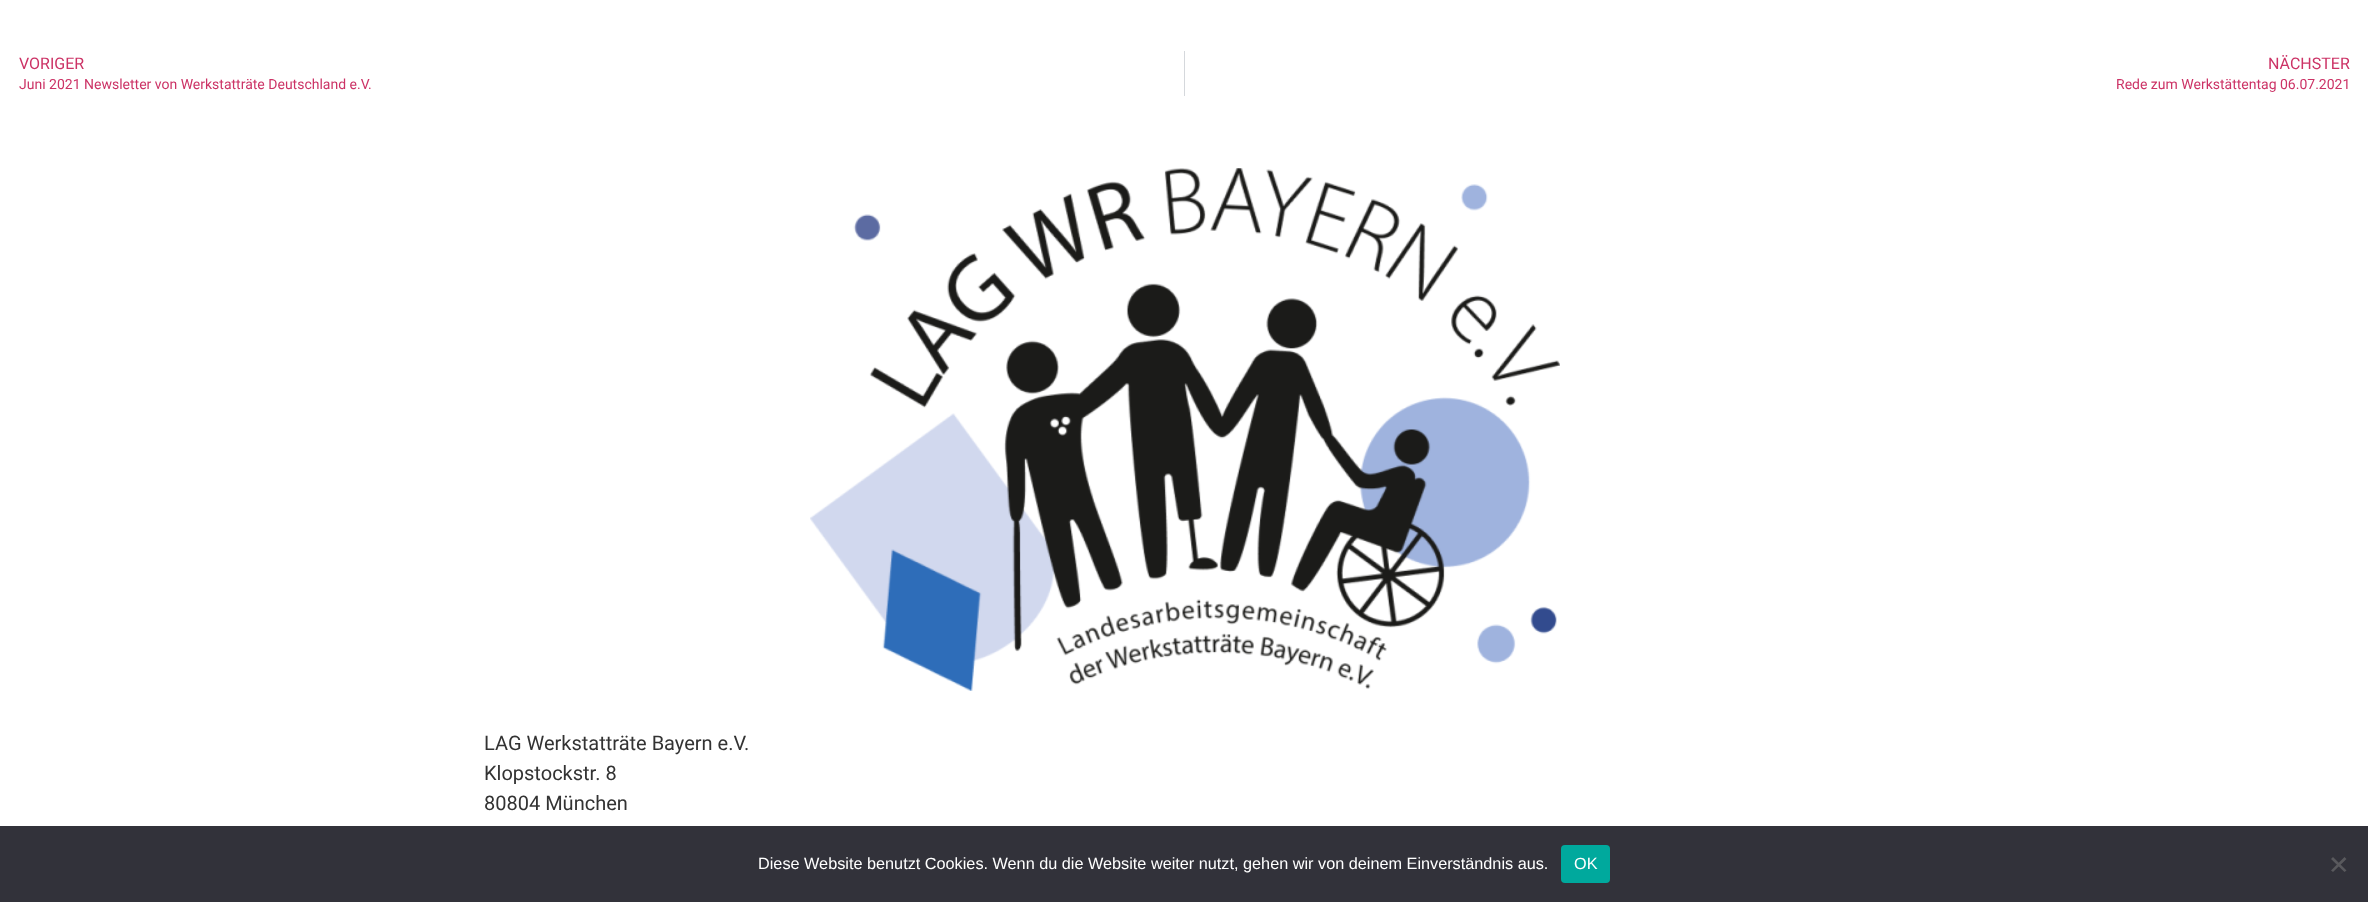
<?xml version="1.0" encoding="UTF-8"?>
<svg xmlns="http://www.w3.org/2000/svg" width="2368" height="902">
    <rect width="100%" height="100%" fill="#FFFFFF"/>
    <text x="19" y="69" font-family="Roboto" font-size="16" fill="#CC3366">VORIGER</text>
    <text x="19" y="89" font-family="Roboto" font-size="14" fill="#CC3366">Juni 2021 Newsletter von Werkstatträte Deutschland e.V.</text>
    <rect x="1184" y="51" width="1" height="45" fill="#D5D8DC"/>
    <text x="2268" y="69" font-family="Roboto" font-size="16" fill="#CC3366">NÄCHSTER</text>
    <text x="2116" y="89" font-family="Roboto" font-size="14" fill="#CC3366">Rede zum Werkstättentag 06.07.2021</text>
    <image x="810" y="168" width="750" height="523" href="img_01.png"/>
    <text font-family="Roboto" font-size="20" fill="#333333">
        <tspan x="484" y="750">LAG Werkstatträte Bayern e.V.</tspan>
        <tspan x="484" y="780">Klopstockstr. 8</tspan>
        <tspan x="484" y="810">80804 München</tspan>
    </text>
    <rect x="0" y="826" width="2368" height="76" fill="#32323A"/>
    <text x="758" y="869" font-family="Liberation Sans" font-size="16.25" fill="#FFFFFF">Diese Website benutzt Cookies. Wenn du die Website weiter nutzt, gehen wir von deinem Einverständnis aus.</text>
    <rect x="1561" y="845" width="49" height="38" rx="4" fill="#00A99D"/>
    <text x="1574" y="869" font-family="Liberation Sans" font-size="16.25" fill="#FFFFFF">OK</text>
    <path d="M 2344.5 857 L 2346.5 859 L 2333 872 L 2331 870.5 Z" fill="#59595D"/>
    <path d="M 2331 859 L 2333 857 L 2346.5 870.5 L 2344.5 872 Z" fill="#59595D"/>
</svg>
